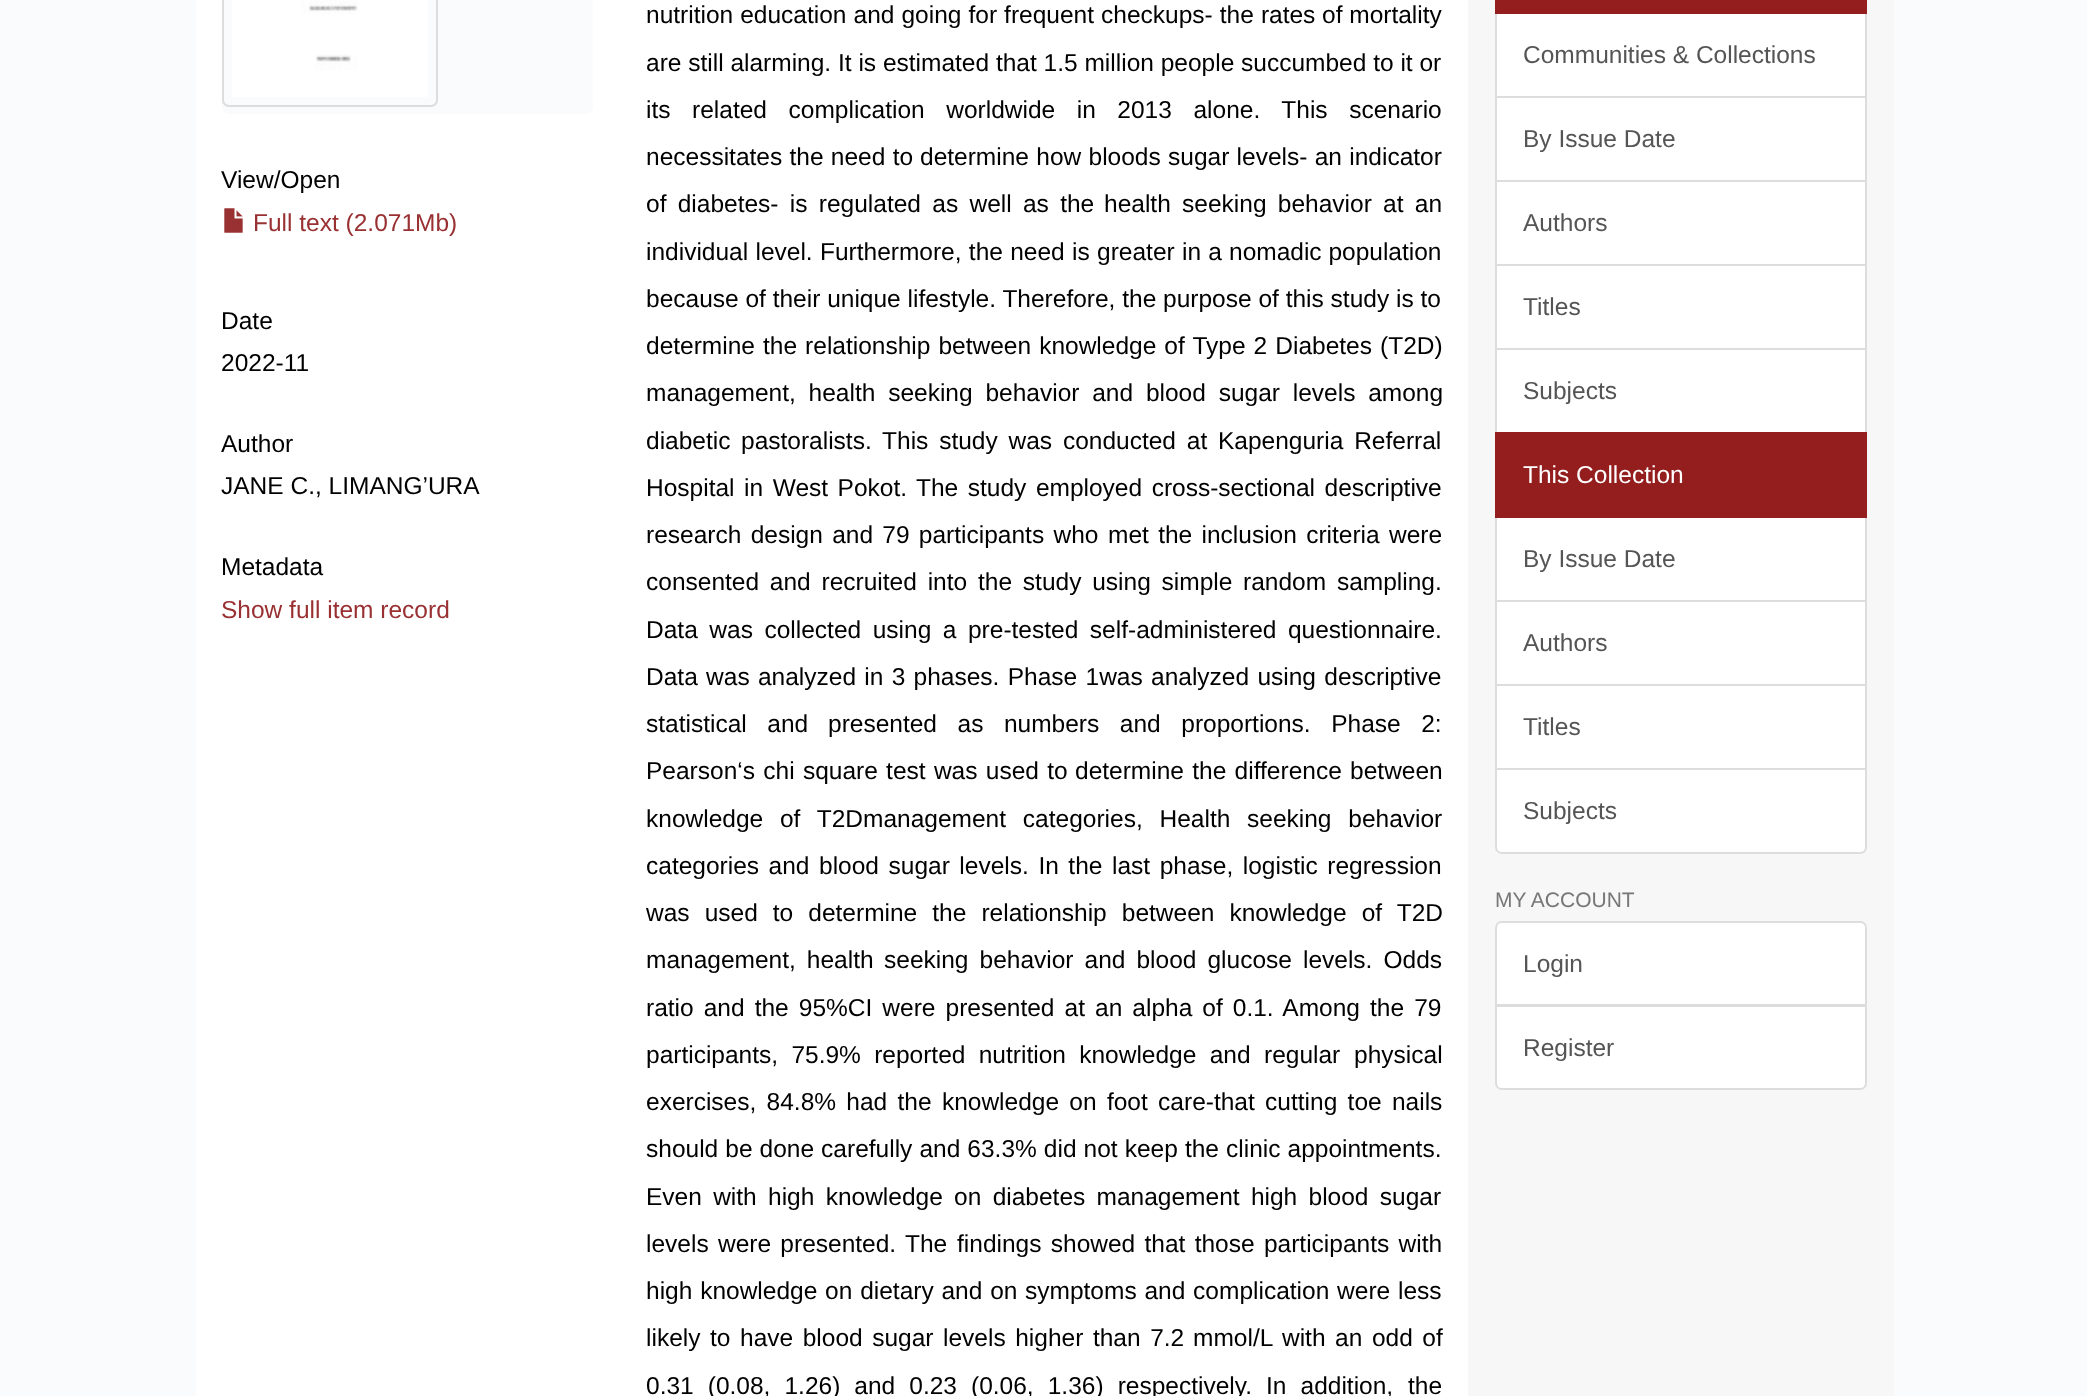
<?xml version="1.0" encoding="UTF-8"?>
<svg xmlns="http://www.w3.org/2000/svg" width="2087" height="1396">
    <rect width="100%" height="100%" fill="#FAFBFC"/>
    <rect x="1468" y="0" width="426" height="1396" fill="#F7F7F7"/>
    <rect x="196" y="0" width="1272" height="1396" fill="#FFFFFF"/>
    <rect x="222" y="-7" width="371" height="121" rx="7" fill="#FAFBFC"/>
    <rect x="223" y="-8" width="214" height="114" rx="6" fill="none" stroke="#DDDDDD" stroke-width="2"/>
    <image x="232" y="0" width="196" height="97" href="img_01.png"/>
    <text x="221" y="188" font-family="Liberation Sans" font-size="24.5" fill="#000000">View/Open</text>
    <image x="224" y="208" width="19" height="25" href="img_02.png"/>
    <text x="253" y="231" font-family="Liberation Sans" font-size="24.5" fill="#993133">Full text (2.071Mb)</text>
    <text font-family="Liberation Sans" font-size="24.5" fill="#000000">
        <tspan x="221" y="329">Date</tspan>
        <tspan x="221" y="371">2022-11</tspan>
    </text>
    <text font-family="Liberation Sans" font-size="24.5" fill="#000000">
        <tspan x="221" y="452">Author</tspan>
        <tspan x="221" y="494">JANE C., LIMANG’URA</tspan>
    </text>
    <text x="221" y="575" font-family="Liberation Sans" font-size="24.5" fill="#000000">Metadata</text>
    <text x="221" y="618" font-family="Liberation Sans" font-size="24.5" fill="#993133">Show full item record</text>
    <text x="646" y="23" word-spacing="0.25" font-family="Liberation Sans" font-size="24.5" fill="#000000">nutrition education and going for frequent checkups- the rates</text>
    <text x="1322" y="23" font-family="Liberation Sans" font-size="24.5" fill="#000000">of mortality</text>
    <text font-family="Liberation Sans" font-size="24.5" fill="#000000">
        <tspan x="646" y="71">are still alarming. It is estimated that 1.5 million people succumbed to it or</tspan>
        <tspan x="646" y="118" word-spacing="14.75">its related complication worldwide in 2013 alone. This scenario</tspan>
        <tspan x="646" y="165" word-spacing="0.5">necessitates the need to</tspan>
    </text>
    <text x="920" y="165" word-spacing="0.5" font-family="Liberation Sans" font-size="24.5" fill="#000000">determine how bloods sugar levels- an indicator</text>
    <text x="646" y="212" word-spacing="4.5" font-family="Liberation Sans" font-size="24.5" fill="#000000">of diabetes- is regulated as well as the</text>
    <text x="1104" y="212" word-spacing="4.5" font-family="Liberation Sans" font-size="24.5" fill="#000000">health seeking behavior at an</text>
    <text x="646" y="260" word-spacing="0.5" font-family="Liberation Sans" font-size="24.5" fill="#000000">individual level. Furthermore, the need is greater in a</text>
    <text x="1229" y="260" font-family="Liberation Sans" font-size="24.5" fill="#000000">nomadic population</text>
    <text font-family="Liberation Sans" font-size="24.5" fill="#000000">
        <tspan x="646" y="307">because of their unique lifestyle. Therefore, the purpose of this study is to</tspan>
        <tspan x="646" y="354" word-spacing="1.25">determine the relationship between knowledge of Type 2 Diabetes (T2D)</tspan>
        <tspan x="646" y="401" word-spacing="6">management, health seeking behavior and blood sugar levels among</tspan>
        <tspan x="646" y="449">diabetic</tspan>
    </text>
    <text x="741" y="449" word-spacing="4" font-family="Liberation Sans" font-size="24.5" fill="#000000">pastoralists. This study was conducted at Kapenguria Referral</text>
    <text x="646" y="496" word-spacing="2.75" font-family="Liberation Sans" font-size="24.5" fill="#000000">Hospital in West Pokot.</text>
    <text x="916" y="496" word-spacing="2.75" font-family="Liberation Sans" font-size="24.5" fill="#000000">The study employed cross-sectional descriptive</text>
    <text x="646" y="543" word-spacing="2.5" font-family="Liberation Sans" font-size="24.5" fill="#000000">research design and 79 participants who</text>
    <text x="1108" y="543" word-spacing="2.5" font-family="Liberation Sans" font-size="24.5" fill="#000000">met the inclusion criteria were</text>
    <text x="646" y="590" word-spacing="4" font-family="Liberation Sans" font-size="24.5" fill="#000000">consented and recruited into the study using simple</text>
    <text x="1243" y="590" word-spacing="4" font-family="Liberation Sans" font-size="24.5" fill="#000000">random sampling.</text>
    <text font-family="Liberation Sans" font-size="24.5" fill="#000000">
        <tspan x="646" y="638" word-spacing="4.75">Data was collected using a pre-tested self-administered questionnaire.</tspan>
        <tspan x="646" y="685" word-spacing="1.5">Data was analyzed in 3 phases. Phase 1was analyzed using descriptive</tspan>
        <tspan x="646" y="732" word-spacing="13.75">statistical and</tspan>
    </text>
    <text x="828" y="732" word-spacing="13.75" font-family="Liberation Sans" font-size="24.5" fill="#000000">presented as numbers and proportions. Phase 2:</text>
    <text x="646" y="779" word-spacing="1.5" font-family="Liberation Sans" font-size="24.5" fill="#000000">Pearson‘s chi square test was used to</text>
    <text x="1075" y="779" word-spacing="1.5" font-family="Liberation Sans" font-size="24.5" fill="#000000">determine the difference between</text>
    <text x="646" y="827" word-spacing="10" font-family="Liberation Sans" font-size="24.5" fill="#000000">knowledge of T2Dmanagement categories, Health</text>
    <text x="1247" y="827" word-spacing="10" font-family="Liberation Sans" font-size="24.5" fill="#000000">seeking behavior</text>
    <text font-family="Liberation Sans" font-size="24.5" fill="#000000">
        <tspan x="646" y="874" word-spacing="2.75">categories and blood sugar levels. In the last phase, logistic regression</tspan>
        <tspan x="646" y="921" word-spacing="8.25">was used to determine the relationship between knowledge of T2D</tspan>
        <tspan x="646" y="968" word-spacing="4.25">management, health</tspan>
    </text>
    <text x="884" y="968" word-spacing="4.25" font-family="Liberation Sans" font-size="24.5" fill="#000000">seeking behavior and blood glucose levels. Odds</text>
    <text x="646" y="1016" word-spacing="3.25" font-family="Liberation Sans" font-size="24.5" fill="#000000">ratio and the 95%CI were presented at</text>
    <text x="1095" y="1016" word-spacing="3.25" font-family="Liberation Sans" font-size="24.5" fill="#000000">an alpha of 0.1. Among the 79</text>
    <text x="646" y="1063" word-spacing="6.5" font-family="Liberation Sans" font-size="24.5" fill="#000000">participants, 75.9% reported nutrition knowledge and</text>
    <text x="1264" y="1063" word-spacing="7" font-family="Liberation Sans" font-size="24.5" fill="#000000">regular physical</text>
    <text font-family="Liberation Sans" font-size="24.5" fill="#000000">
        <tspan x="646" y="1110" word-spacing="3.5">exercises, 84.8% had the knowledge on foot care-that cutting toe nails</tspan>
        <tspan x="646" y="1157" word-spacing="0.25">should be done carefully and 63.3% did not keep the clinic appointments.</tspan>
        <tspan x="646" y="1205" word-spacing="4.5">Even with</tspan>
    </text>
    <text x="768" y="1205" word-spacing="4.5" font-family="Liberation Sans" font-size="24.5" fill="#000000">high knowledge on diabetes management high blood sugar</text>
    <text x="646" y="1252" word-spacing="2.5" font-family="Liberation Sans" font-size="24.5" fill="#000000">levels were presented. The</text>
    <text x="957" y="1252" word-spacing="2.5" font-family="Liberation Sans" font-size="24.5" fill="#000000">findings showed that those participants with</text>
    <text x="646" y="1299" word-spacing="1" font-family="Liberation Sans" font-size="24.5" fill="#000000">high knowledge on dietary and on</text>
    <text x="1025" y="1299" word-spacing="1" font-family="Liberation Sans" font-size="24.5" fill="#000000">symptoms and complication were less</text>
    <text x="646" y="1346" word-spacing="2.75" font-family="Liberation Sans" font-size="24.5" fill="#000000">likely to have blood sugar levels higher than 7.2</text>
    <text x="1193" y="1346" word-spacing="2.75" font-family="Liberation Sans" font-size="24.5" fill="#000000">mmol/L with an odd of</text>
    <text x="646" y="1394" word-spacing="7.25" font-family="Liberation Sans" font-size="24.5" fill="#000000">0.31 (0.08, 1.26) and 0.23 (0.06, 1.36) respectively. In addition,</text>
    <text x="1408" y="1394" font-family="Liberation Sans" font-size="24.5" fill="#000000">the</text>
    <rect x="1496" y="13" width="370" height="84" fill="#FFFFFF" stroke="#DDDDDD" stroke-width="2"/>
    <rect x="1495" y="0" width="372" height="14" fill="#941D1D"/>
    <text x="1523" y="63" font-family="Liberation Sans" font-size="24.5" fill="#555555">Communities &amp; Collections</text>
    <rect x="1496" y="97" width="370" height="84" fill="#FFFFFF" stroke="#DDDDDD" stroke-width="2"/>
    <text x="1523" y="147" font-family="Liberation Sans" font-size="24.5" fill="#555555">By Issue Date</text>
    <rect x="1496" y="181" width="370" height="84" fill="#FFFFFF" stroke="#DDDDDD" stroke-width="2"/>
    <text x="1523" y="231" font-family="Liberation Sans" font-size="24.5" fill="#555555">Authors</text>
    <rect x="1496" y="265" width="370" height="84" fill="#FFFFFF" stroke="#DDDDDD" stroke-width="2"/>
    <text x="1523" y="315" font-family="Liberation Sans" font-size="24.5" fill="#555555">Titles</text>
    <rect x="1496" y="349" width="370" height="84" fill="#FFFFFF" stroke="#DDDDDD" stroke-width="2"/>
    <text x="1523" y="399" font-family="Liberation Sans" font-size="24.5" fill="#555555">Subjects</text>
    <rect x="1496" y="517" width="370" height="84" fill="#FFFFFF" stroke="#DDDDDD" stroke-width="2"/>
    <rect x="1495" y="432" width="372" height="86" fill="#941D1D"/>
    <text x="1523" y="483" font-family="Liberation Sans" font-size="24.5" fill="#FFFFFF">This Collection</text>
    <text x="1523" y="567" font-family="Liberation Sans" font-size="24.5" fill="#555555">By Issue Date</text>
    <rect x="1496" y="601" width="370" height="84" fill="#FFFFFF" stroke="#DDDDDD" stroke-width="2"/>
    <text x="1523" y="651" font-family="Liberation Sans" font-size="24.5" fill="#555555">Authors</text>
    <rect x="1496" y="685" width="370" height="84" fill="#FFFFFF" stroke="#DDDDDD" stroke-width="2"/>
    <text x="1523" y="735" font-family="Liberation Sans" font-size="24.5" fill="#555555">Titles</text>
    <path d="M 1496 769 H 1866 V 847 C 1866 850.5 1863.5 853 1860 853 H 1502 C 1498.5 853 1496 850.5 1496 847 Z" fill="#FFFFFF" stroke="#DDDDDD" stroke-width="2"/>
    <text x="1523" y="819" font-family="Liberation Sans" font-size="24.5" fill="#555555">Subjects</text>
    <text x="1495" y="907" font-family="Liberation Sans" font-size="21" fill="#777777">MY ACCOUNT</text>
    <path d="M 1502 922 H 1860 C 1863.5 922 1866 924.5 1866 928 V 1005 H 1496 V 928 C 1496 924.5 1498.5 922 1502 922 Z" fill="#FFFFFF" stroke="#DDDDDD" stroke-width="2"/>
    <text x="1523" y="972" font-family="Liberation Sans" font-size="24.5" fill="#555555">Login</text>
    <path d="M 1496 1006 H 1866 V 1083 C 1866 1086.5 1863.5 1089 1860 1089 H 1502 C 1498.5 1089 1496 1086.5 1496 1083 Z" fill="#FFFFFF" stroke="#DDDDDD" stroke-width="2"/>
    <text x="1523" y="1056" font-family="Liberation Sans" font-size="24.5" fill="#555555">Register</text>
</svg>
